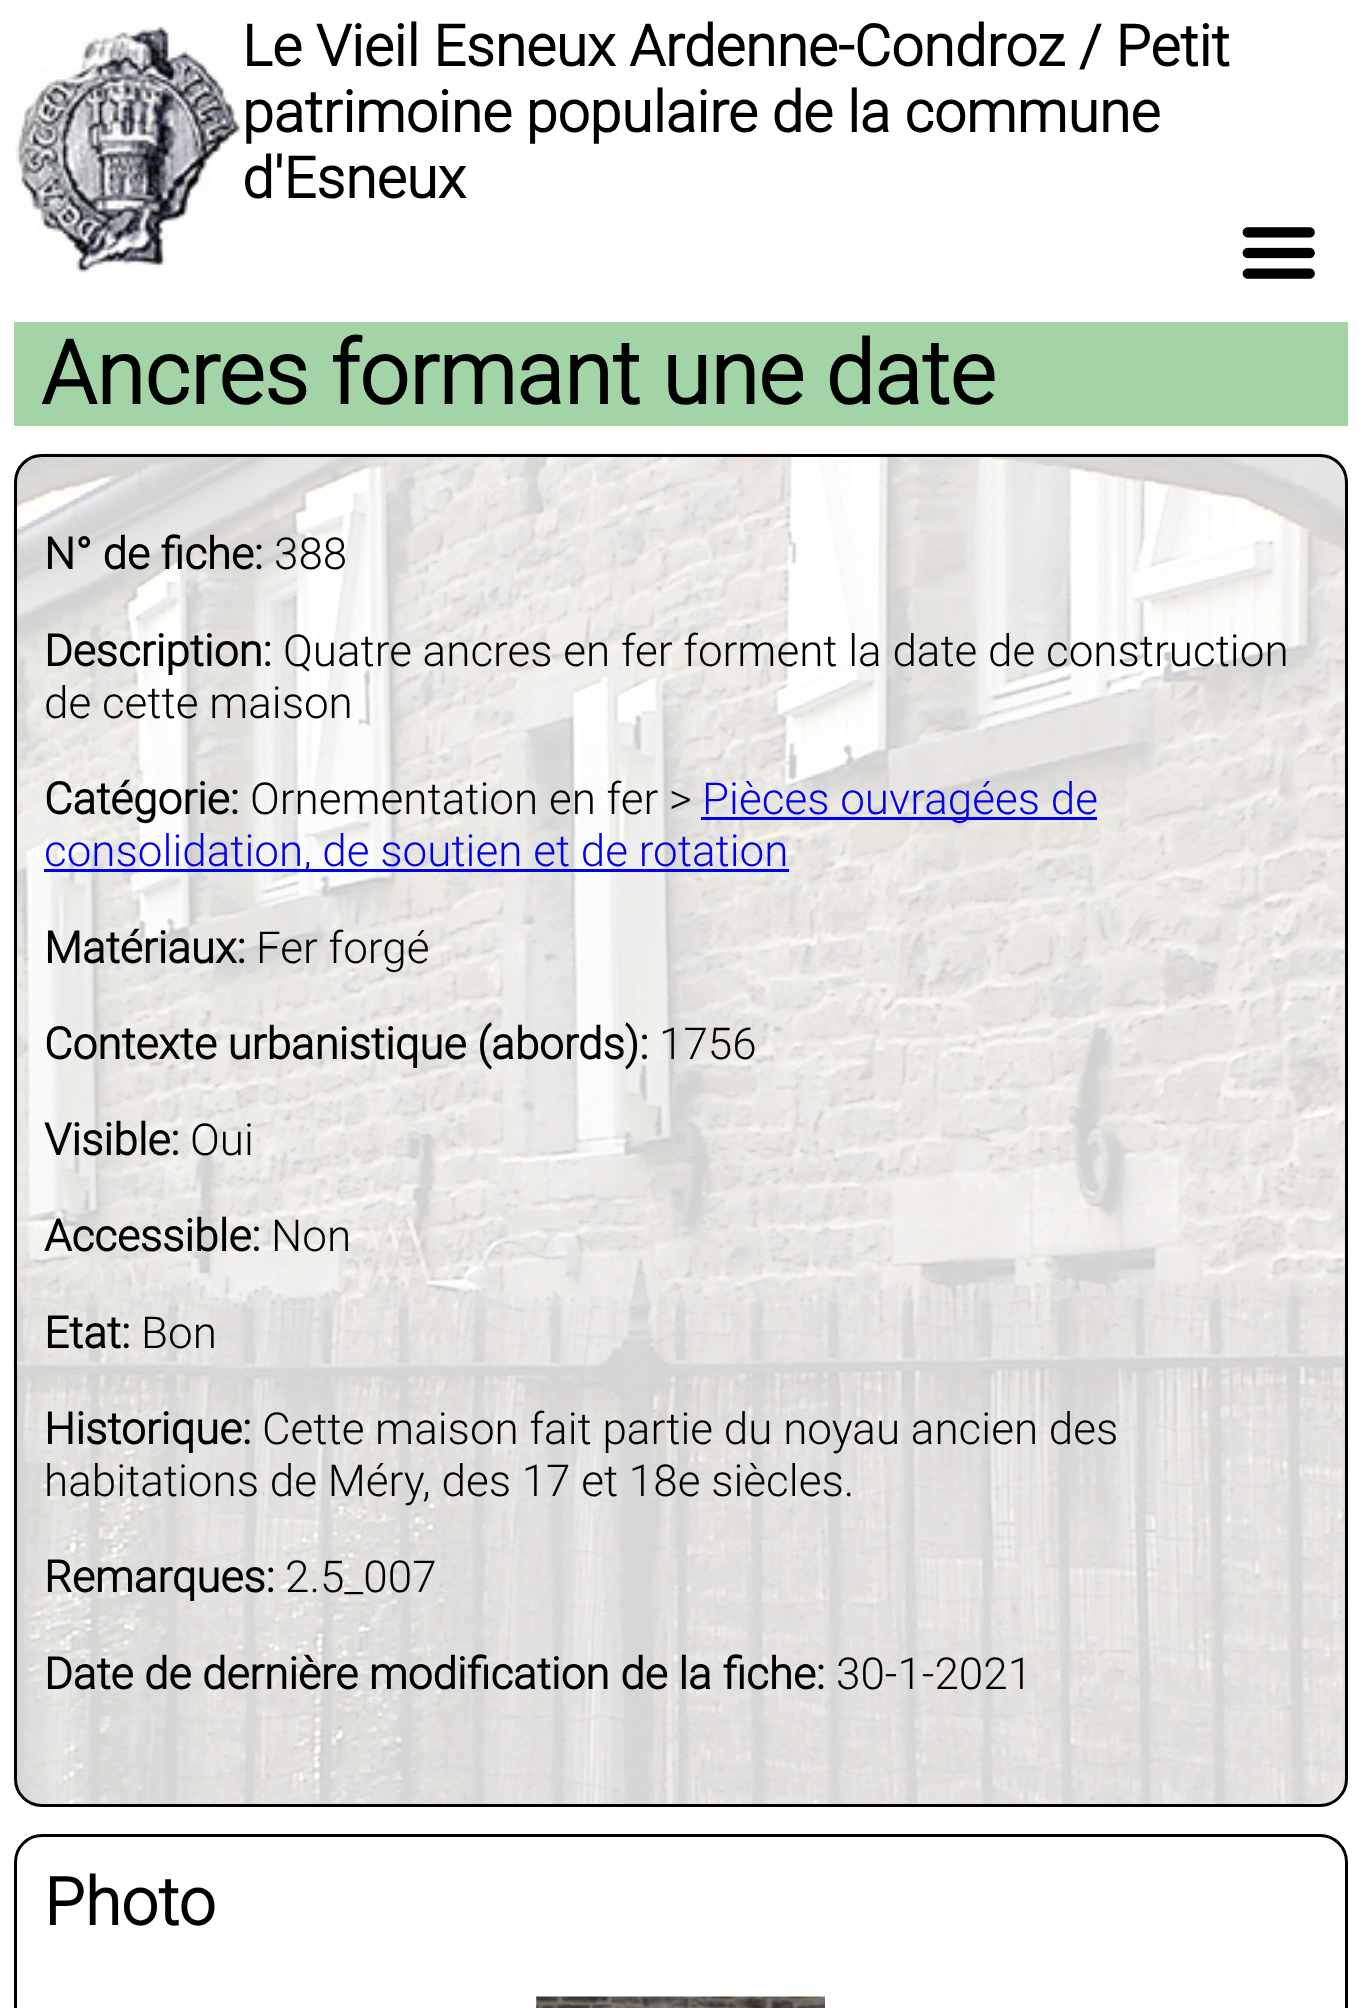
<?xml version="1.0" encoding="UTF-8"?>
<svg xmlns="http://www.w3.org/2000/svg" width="1361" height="2008">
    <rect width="100%" height="100%" fill="#FFFFFF"/>
    <image x="14" y="25" width="227" height="248" href="img_01.png"/>
    <text font-family="Roboto" font-size="57.25" font-weight="700" fill="#000000">
        <tspan x="242" y="66">Le Vieil Esneux Ardenne-Condroz / Petit</tspan>
        <tspan x="242" y="132">patrimoine populaire de la commune</tspan>
        <tspan x="242" y="198">d'Esneux</tspan>
    </text>
    <image x="1242" y="227" width="73" height="52" href="img_02.png"/>
    <rect x="14" y="322" width="1334" height="104" fill="#A2D4A8"/>
    <text x="41" y="404" font-family="Roboto" font-size="88" font-weight="700" fill="#000000">Ancres formant une date</text>
    <image x="13" y="453" width="1335" height="1354" href="img_03.png"/>
    <rect x="15.5" y="455.5" width="1331" height="1350" rx="26.5" fill="none" stroke="#000000" stroke-width="3"/>
    <text x="44" y="569" font-family="Roboto" font-size="44" font-weight="700" fill="#000000">N° de fiche:</text>
    <text x="274" y="569" font-family="Roboto" font-size="44" font-weight="300" fill="#000000">388</text>
    <text x="44" y="666" font-family="Roboto" font-size="44" font-weight="700" fill="#000000">Description:</text>
    <text x="283" y="666" font-family="Roboto" font-size="44" font-weight="300" fill="#000000">Quatre ancres en fer forment la date de construction</text>
    <text x="44" y="718" font-family="Roboto" font-size="44" font-weight="300" fill="#000000">de cette maison</text>
    <text x="44" y="814" font-family="Roboto" font-size="44" font-weight="700" fill="#000000">Catégorie:</text>
    <text x="250" y="814" font-family="Roboto" font-size="44" font-weight="300" fill="#000000">Ornementation en fer &gt;</text>
    <rect x="701" y="817" width="396" height="3" fill="#0000EE"/>
    <text x="702" y="814" font-family="Roboto" font-size="44" font-weight="300" fill="#0000EE">Pièces ouvragées de</text>
    <rect x="44" y="869" width="745" height="3" fill="#0000EE"/>
    <text x="44" y="866" font-family="Roboto" font-size="44" font-weight="300" fill="#0000EE">consolidation, de soutien et de rotation</text>
    <text x="44" y="963" font-family="Roboto" font-size="44" font-weight="700" fill="#000000">Matériaux:</text>
    <text x="256" y="963" font-family="Roboto" font-size="44" font-weight="300" fill="#000000">Fer forgé</text>
    <text x="44" y="1059" font-family="Roboto" font-size="44" font-weight="700" fill="#000000">Contexte urbanistique (abords):</text>
    <text x="659" y="1059" font-family="Roboto" font-size="44" font-weight="300" fill="#000000">1756</text>
    <text x="44" y="1155" font-family="Roboto" font-size="44" font-weight="700" fill="#000000">Visible:</text>
    <text x="190" y="1155" font-family="Roboto" font-size="44" font-weight="300" fill="#000000">Oui</text>
    <text x="44" y="1251" font-family="Roboto" font-size="44" font-weight="700" fill="#000000">Accessible:</text>
    <text x="271" y="1251" font-family="Roboto" font-size="44" font-weight="300" fill="#000000">Non</text>
    <text x="44" y="1348" font-family="Roboto" font-size="44" font-weight="700" fill="#000000">Etat:</text>
    <text x="141" y="1348" font-family="Roboto" font-size="44" font-weight="300" fill="#000000">Bon</text>
    <text x="44" y="1444" font-family="Roboto" font-size="44" font-weight="700" fill="#000000">Historique:</text>
    <text x="262" y="1444" font-family="Roboto" font-size="44" font-weight="300" fill="#000000">Cette maison fait partie du noyau ancien des</text>
    <text x="44" y="1496" font-family="Roboto" font-size="44" font-weight="300" fill="#000000">habitations de Méry, des 17 et 18e siècles.</text>
    <text x="44" y="1592" font-family="Roboto" font-size="44" font-weight="700" fill="#000000">Remarques:</text>
    <text x="285" y="1592" font-family="Roboto" font-size="44" font-weight="300" fill="#000000">2.5_007</text>
    <text x="44" y="1689" font-family="Roboto" font-size="44" font-weight="700" fill="#000000">Date de dernière modification de la fiche:</text>
    <text x="836" y="1689" font-family="Roboto" font-size="44" font-weight="300" fill="#000000">30-1-2021</text>
    <rect x="15.5" y="1835.5" width="1331" height="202" rx="26.5" fill="none" stroke="#000000" stroke-width="3"/>
    <text x="44" y="1925" font-family="Roboto" font-size="66" font-weight="700" fill="#000000">Photo</text>
    <image x="536" y="1996" width="289" height="12" href="img_04.png"/>
</svg>
